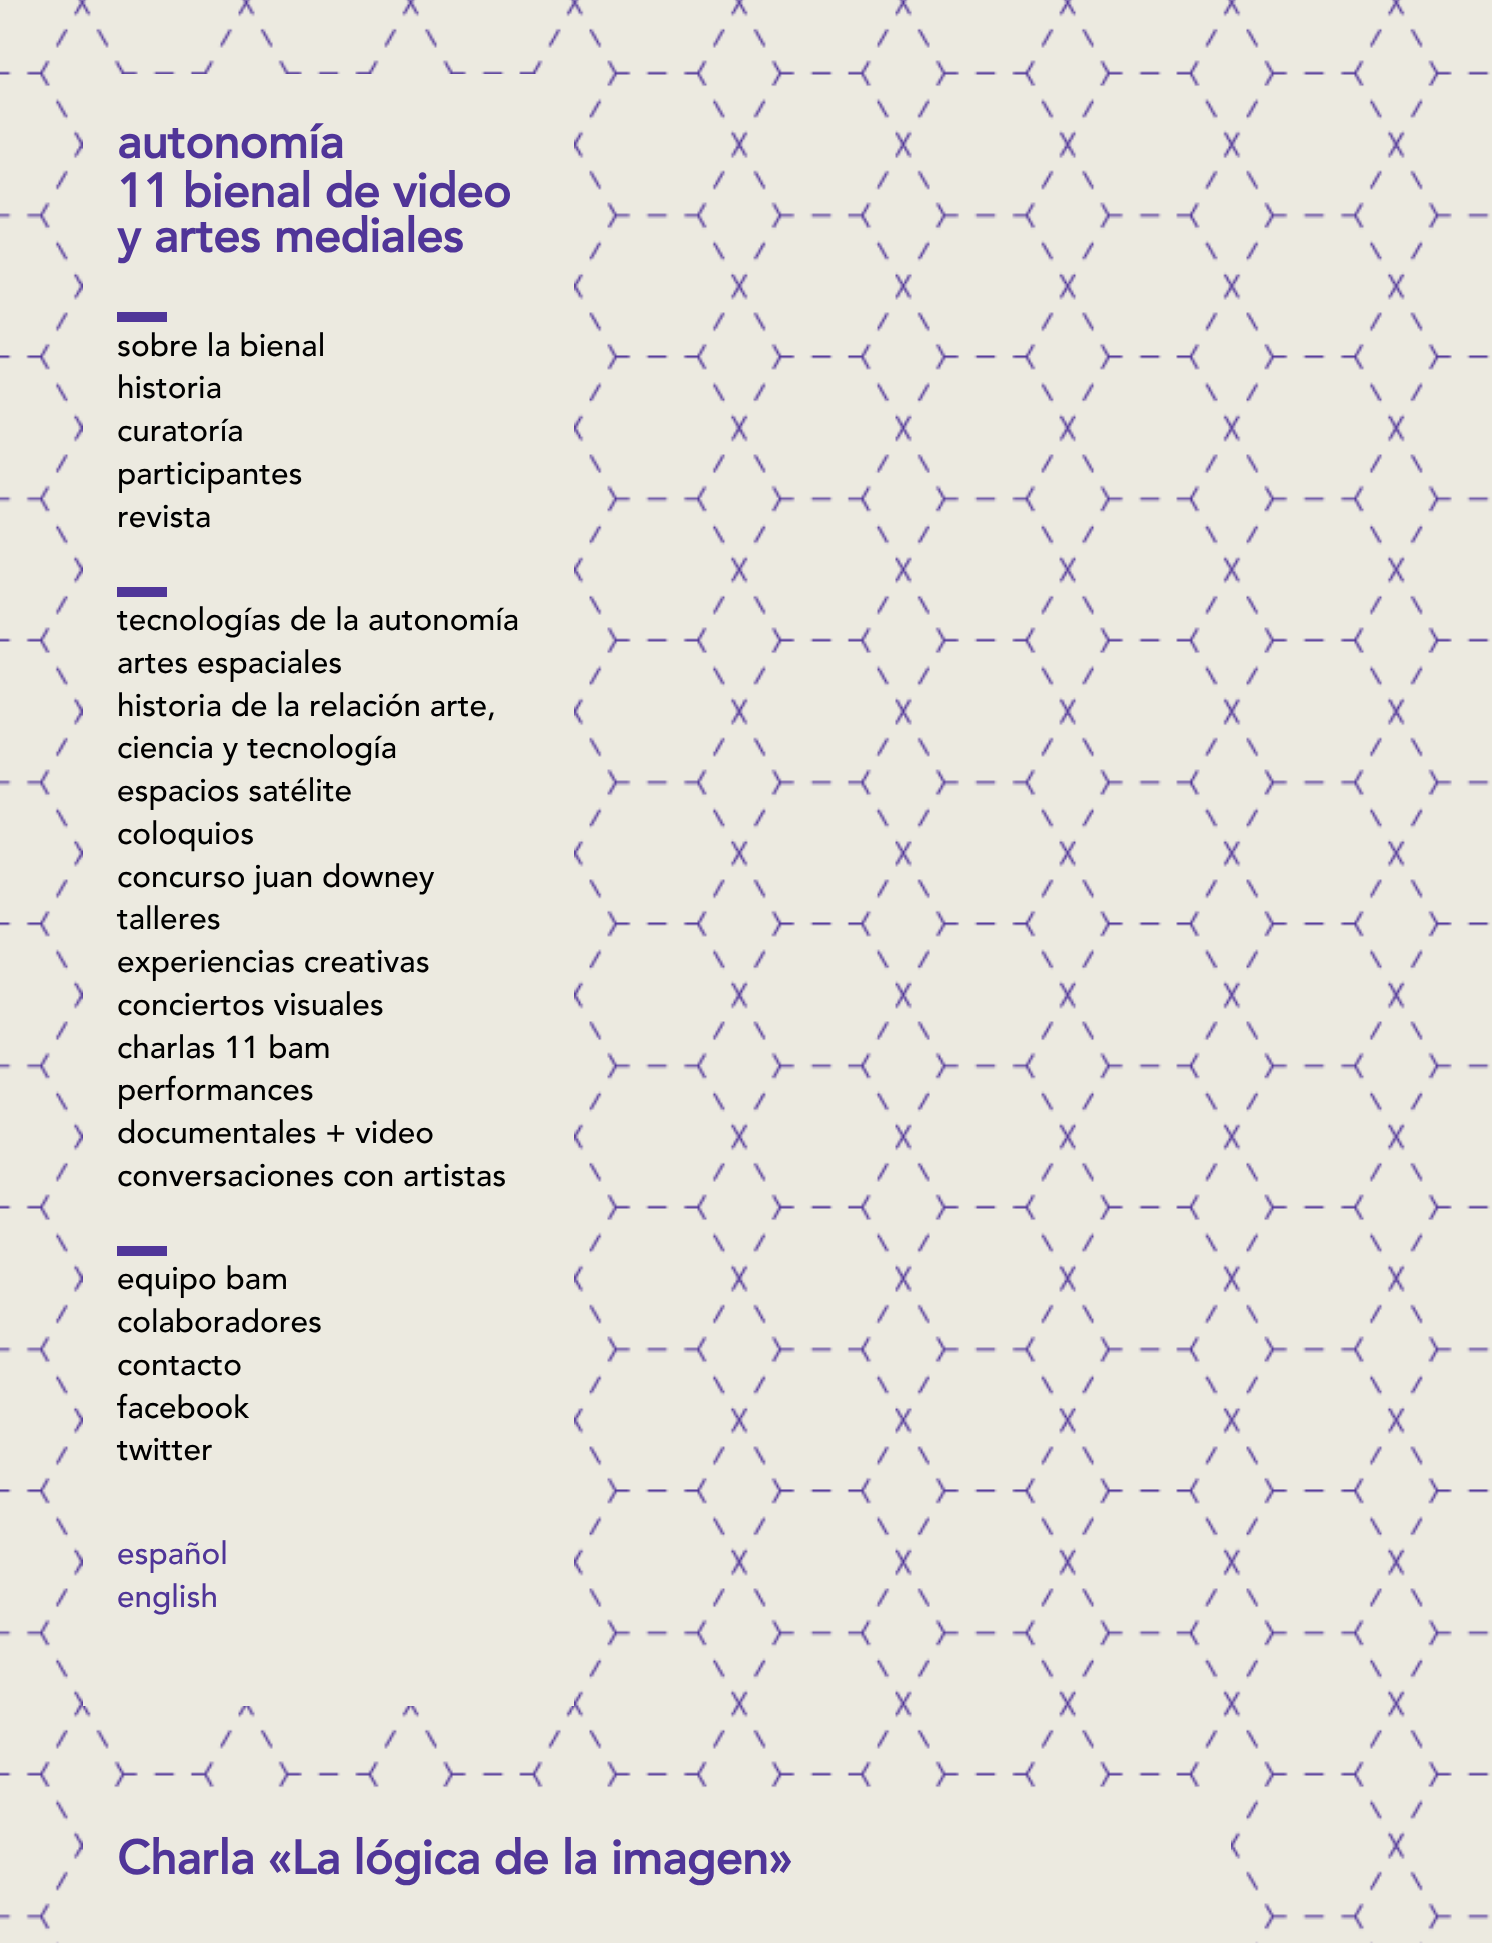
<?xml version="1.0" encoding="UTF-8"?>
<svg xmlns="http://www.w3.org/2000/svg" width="1492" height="1943">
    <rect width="100%" height="100%" fill="#FFFFFF"/>
    <image x="0" y="0" width="1492" height="1943" href="img_01.png"/>
    <rect x="83" y="74" width="491" height="1632" fill="#ECEAE0"/>
    <text font-family="Avenir" font-size="47.25" font-weight="700" fill="#503598">
        <tspan x="117" y="158">autonomía</tspan>
        <tspan x="117" y="207">11 bienal de video</tspan>
        <tspan x="117" y="252">y artes mediales</tspan>
    </text>
    <rect x="117" y="312" width="50" height="10" fill="#503699"/>
    <text font-family="Avenir" font-size="31.5" font-weight="500" fill="#000000">
        <tspan x="117" y="356">sobre la bienal</tspan>
        <tspan x="117" y="398">historia</tspan>
        <tspan x="117" y="441">curatoría</tspan>
        <tspan x="117" y="484">participantes</tspan>
        <tspan x="117" y="527">revista</tspan>
    </text>
    <rect x="117" y="587" width="50" height="10" fill="#503699"/>
    <text font-family="Avenir" font-size="31.5" font-weight="500" fill="#000000">
        <tspan x="117" y="630">tecnologías de la autonomía</tspan>
        <tspan x="117" y="673">artes espaciales</tspan>
        <tspan x="117" y="716">historia de la relación arte,</tspan>
        <tspan x="117" y="758">ciencia y tecnología</tspan>
        <tspan x="117" y="801">espacios satélite</tspan>
        <tspan x="117" y="844">coloquios</tspan>
        <tspan x="117" y="887">concurso juan downey</tspan>
        <tspan x="117" y="929">talleres</tspan>
        <tspan x="117" y="972">experiencias creativas</tspan>
        <tspan x="117" y="1015">conciertos visuales</tspan>
        <tspan x="117" y="1058">charlas 11 bam</tspan>
        <tspan x="117" y="1100">performances</tspan>
        <tspan x="117" y="1143">documentales + video</tspan>
        <tspan x="117" y="1186">conversaciones con artistas</tspan>
    </text>
    <rect x="117" y="1246" width="50" height="10" fill="#503699"/>
    <text font-family="Avenir" font-size="31.5" font-weight="500" fill="#000000">
        <tspan x="117" y="1289">equipo bam</tspan>
        <tspan x="117" y="1332">colaboradores</tspan>
        <tspan x="117" y="1375">contacto</tspan>
        <tspan x="117" y="1418">facebook</tspan>
        <tspan x="117" y="1460">twitter</tspan>
    </text>
    <text font-family="Avenir" font-size="31.5" font-weight="500" fill="#503598">
        <tspan x="117" y="1564">español</tspan>
        <tspan x="117" y="1607">english</tspan>
    </text>
    <rect x="83" y="1799" width="1148" height="144" fill="#ECEAE0"/>
    <text x="117" y="1874" font-family="Avenir" font-size="47.25" font-weight="700" fill="#503598">Charla «La lógica de la imagen»</text>
</svg>
